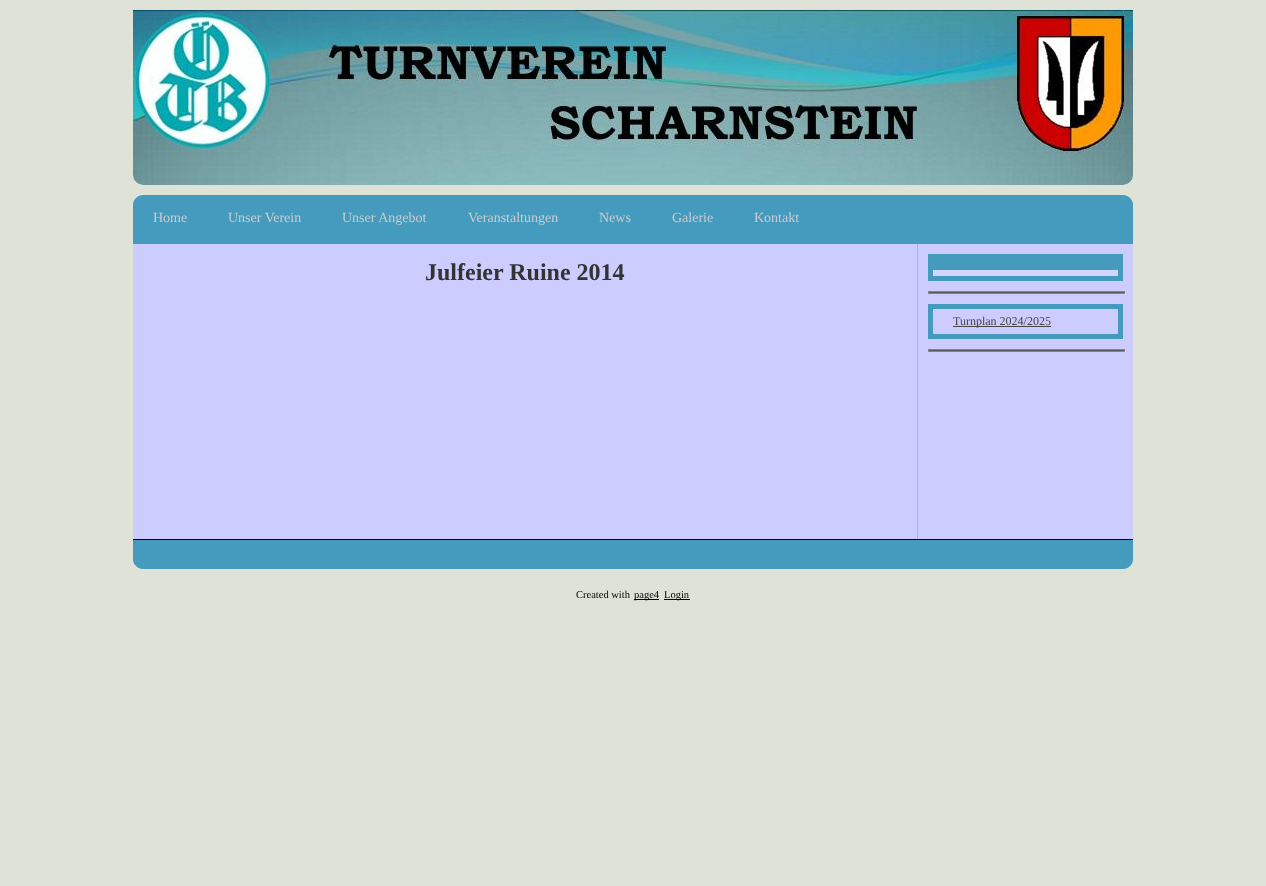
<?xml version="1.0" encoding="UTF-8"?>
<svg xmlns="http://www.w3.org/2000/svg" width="1266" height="886">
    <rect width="100%" height="100%" fill="#DFE2D6"/>
    <path d="M 133 10 H 1133 V 175 C 1133 180.5 1128.5 185 1123 185 H 143 C 137.5 185 133 180.5 133 175 Z" fill="#FFFFFF"/>
    <image x="133" y="10" width="1000" height="175" href="img_01.png"/>
    <path d="M 143 195 H 1123 C 1128.5 195 1133 199.5 1133 205 V 244 H 133 V 205 C 133 199.5 137.5 195 143 195 Z" fill="#459BBE"/>
    <text x="153" y="222" font-family="Liberation Serif" font-size="14" fill="#CCCCCC">Home</text>
    <text x="228" y="222" font-family="Liberation Serif" font-size="14" fill="#CCCCCC">Unser Verein</text>
    <text x="342" y="222" font-family="Liberation Serif" font-size="14" fill="#CCCCCC">Unser Angebot</text>
    <text x="468" y="222" font-family="Liberation Serif" font-size="14" fill="#CCCCCC">Veranstaltungen</text>
    <text x="599" y="222" font-family="Liberation Serif" font-size="14" fill="#CCCCCC">News</text>
    <text x="672" y="222" font-family="Liberation Serif" font-size="14" fill="#CCCCCC">Galerie</text>
    <text x="754" y="222" font-family="Liberation Serif" font-size="14" fill="#CCCCCC">Kontakt</text>
    <rect x="133" y="244" width="784" height="295" fill="#CCCCFF"/>
    <rect x="917" y="244" width="1" height="295" fill="#B3B3B3"/>
    <text x="425" y="280" font-family="Liberation Serif" font-size="24" font-weight="700" fill="#333333">Julfeier Ruine 2014</text>
    <rect x="918" y="244" width="215" height="295" fill="#CCCCFF"/>
    <rect x="933" y="270" width="185" height="6" fill="#D2D5FF"/>
    <rect x="930.5" y="256.5" width="190" height="22" fill="none" stroke="#459BBE" stroke-width="5"/>
    <rect x="933" y="259" width="185" height="11" fill="#459BBE"/>
    <rect x="928.5" y="291.5" width="196" height="2" fill="#595959" stroke="#858585"/>
    <rect x="930.5" y="306.5" width="190" height="30" fill="none" stroke="#459BBE" stroke-width="5"/>
    <rect x="953" y="326" width="98" height="1" fill="#454545"/>
    <text x="953" y="325" font-family="Liberation Serif" font-size="12" fill="#454545">Turnplan 2024/2025</text>
    <rect x="928.5" y="349.5" width="196" height="2" fill="#595959" stroke="#858585"/>
    <path d="M 133 540 H 1133 V 559 C 1133 564.5 1128.5 569 1123 569 H 143 C 137.5 569 133 564.5 133 559 Z" fill="#459BBE"/>
    <rect x="133" y="539" width="1000" height="1" fill="#000000"/>
    <text x="576" y="598" font-family="Liberation Serif" font-size="10.5" fill="#000000">Created with</text>
    <rect x="634" y="599" width="25" height="1" fill="#000000"/>
    <text x="634" y="598" font-family="Liberation Serif" font-size="10.5" fill="#000000">page4</text>
    <rect x="664" y="599" width="26" height="1" fill="#000000"/>
    <text x="664" y="598" font-family="Liberation Serif" font-size="10.5" fill="#000000">Login</text>
</svg>
